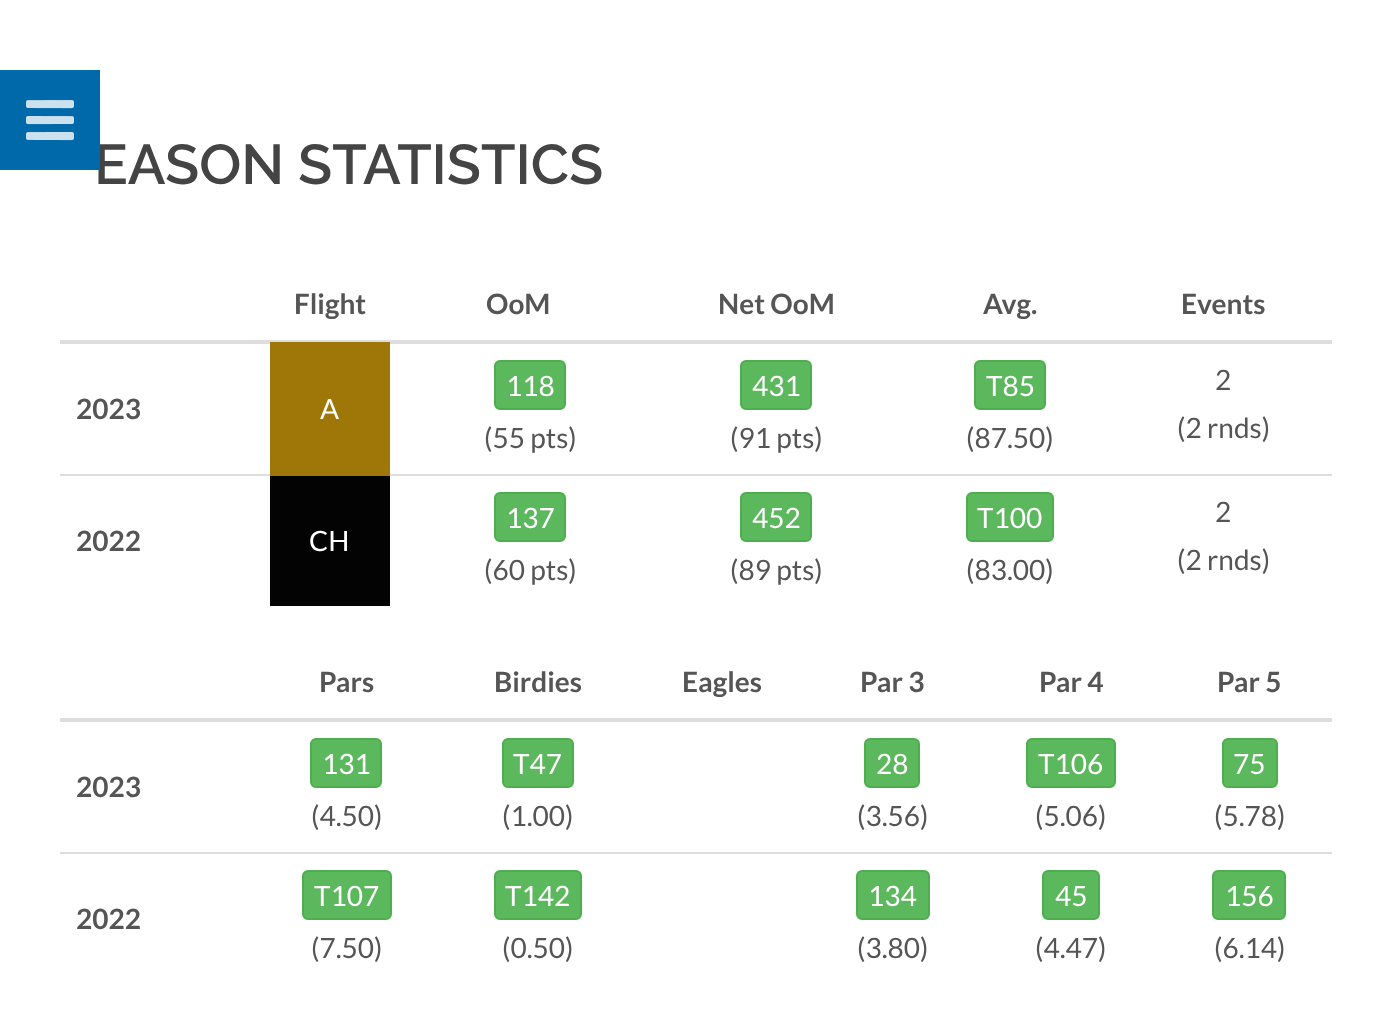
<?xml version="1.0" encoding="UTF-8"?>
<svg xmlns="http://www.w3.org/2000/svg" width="1392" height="1020">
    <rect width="100%" height="100%" fill="#FFFFFF"/>
    <text x="94" y="184" font-family="Raleway" font-size="56" font-weight="600" fill="#444444">EASON STATISTICS</text>
    <rect x="0" y="70" width="100" height="100" fill="#0069AA"/>
    <image x="26" y="100" width="48" height="41" href="img_01.png"/>
    <text x="294" y="314" font-family="Lato" font-size="28" font-weight="700" fill="#555555">Flight</text>
    <text x="486" y="314" font-family="Lato" font-size="28" font-weight="700" fill="#555555">OoM</text>
    <text x="718" y="314" font-family="Lato" font-size="28" font-weight="700" fill="#555555">Net OoM</text>
    <text x="983" y="314" font-family="Lato" font-size="28" font-weight="700" fill="#555555">Avg.</text>
    <rect x="60" y="340" width="1272" height="4" fill="#DDDDDD"/>
    <text x="1181" y="314" font-family="Lato" font-size="28" font-weight="700" fill="#555555">Events</text>
    <text x="76" y="419" font-family="Lato" font-size="28" font-weight="700" fill="#555555">2023</text>
    <rect x="388" y="474" width="944" height="2" fill="#DDDDDD"/>
    <rect x="270" y="342" width="120" height="134" fill="#9F7709"/>
    <text x="320" y="419" font-family="Lato" font-size="28" fill="#FFFFFF">A</text>
    <rect x="495" y="361" width="70" height="48" rx="5" fill="#5CB85C" stroke="#4CAE4C" stroke-width="2"/>
    <text x="506" y="396" font-family="Lato" font-size="28" fill="#FFFFFF">118</text>
    <text x="484" y="448" font-family="Lato" font-size="28" fill="#555555">(55 pts)</text>
    <rect x="741" y="361" width="70" height="48" rx="5" fill="#5CB85C" stroke="#4CAE4C" stroke-width="2"/>
    <text x="752" y="396" font-family="Lato" font-size="28" fill="#FFFFFF">431</text>
    <text x="730" y="448" font-family="Lato" font-size="28" fill="#555555">(91 pts)</text>
    <rect x="975" y="361" width="70" height="48" rx="5" fill="#5CB85C" stroke="#4CAE4C" stroke-width="2"/>
    <text x="986" y="396" font-family="Lato" font-size="28" fill="#FFFFFF">T85</text>
    <text x="966" y="448" font-family="Lato" font-size="28" fill="#555555">(87.50)</text>
    <text x="1215" y="390" font-family="Lato" font-size="28" fill="#555555">2</text>
    <text x="1177" y="438" font-family="Lato" font-size="28" fill="#555555">(2 rnds)</text>
    <rect x="60" y="474" width="210" height="2" fill="#DDDDDD"/>
    <text x="76" y="551" font-family="Lato" font-size="28" font-weight="700" fill="#555555">2022</text>
    <rect x="270" y="476" width="120" height="130" fill="#030303"/>
    <text x="309" y="551" font-family="Lato" font-size="28" fill="#FFFFFF">CH</text>
    <rect x="495" y="493" width="70" height="48" rx="5" fill="#5CB85C" stroke="#4CAE4C" stroke-width="2"/>
    <text x="506" y="528" font-family="Lato" font-size="28" fill="#FFFFFF">137</text>
    <text x="484" y="580" font-family="Lato" font-size="28" fill="#555555">(60 pts)</text>
    <rect x="741" y="493" width="70" height="48" rx="5" fill="#5CB85C" stroke="#4CAE4C" stroke-width="2"/>
    <text x="752" y="528" font-family="Lato" font-size="28" fill="#FFFFFF">452</text>
    <text x="730" y="580" font-family="Lato" font-size="28" fill="#555555">(89 pts)</text>
    <rect x="967" y="493" width="86" height="48" rx="5" fill="#5CB85C" stroke="#4CAE4C" stroke-width="2"/>
    <text x="977" y="528" font-family="Lato" font-size="28" fill="#FFFFFF">T100</text>
    <text x="966" y="580" font-family="Lato" font-size="28" fill="#555555">(83.00)</text>
    <text x="1215" y="522" font-family="Lato" font-size="28" fill="#555555">2</text>
    <text x="1177" y="570" font-family="Lato" font-size="28" fill="#555555">(2 rnds)</text>
    <text x="319" y="692" font-family="Lato" font-size="28" font-weight="700" fill="#555555">Pars</text>
    <text x="494" y="692" font-family="Lato" font-size="28" font-weight="700" fill="#555555">Birdies</text>
    <text x="682" y="692" font-family="Lato" font-size="28" font-weight="700" fill="#555555">Eagles</text>
    <text x="860" y="692" font-family="Lato" font-size="28" font-weight="700" fill="#555555">Par 3</text>
    <text x="1039" y="692" font-family="Lato" font-size="28" font-weight="700" fill="#555555">Par 4</text>
    <rect x="60" y="718" width="1272" height="4" fill="#DDDDDD"/>
    <text x="1217" y="692" font-family="Lato" font-size="28" font-weight="700" fill="#555555">Par 5</text>
    <text x="76" y="797" font-family="Lato" font-size="28" font-weight="700" fill="#555555">2023</text>
    <rect x="311" y="739" width="70" height="48" rx="5" fill="#5CB85C" stroke="#4CAE4C" stroke-width="2"/>
    <text x="322" y="774" font-family="Lato" font-size="28" fill="#FFFFFF">131</text>
    <text x="311" y="826" font-family="Lato" font-size="28" fill="#555555">(4.50)</text>
    <rect x="503" y="739" width="70" height="48" rx="5" fill="#5CB85C" stroke="#4CAE4C" stroke-width="2"/>
    <text x="513" y="774" font-family="Lato" font-size="28" fill="#FFFFFF">T47</text>
    <text x="502" y="826" font-family="Lato" font-size="28" fill="#555555">(1.00)</text>
    <rect x="865" y="739" width="54" height="48" rx="5" fill="#5CB85C" stroke="#4CAE4C" stroke-width="2"/>
    <text x="876" y="774" font-family="Lato" font-size="28" fill="#FFFFFF">28</text>
    <text x="857" y="826" font-family="Lato" font-size="28" fill="#555555">(3.56)</text>
    <rect x="1027" y="739" width="88" height="48" rx="5" fill="#5CB85C" stroke="#4CAE4C" stroke-width="2"/>
    <text x="1038" y="774" font-family="Lato" font-size="28" fill="#FFFFFF">T106</text>
    <text x="1035" y="826" font-family="Lato" font-size="28" fill="#555555">(5.06)</text>
    <rect x="1223" y="739" width="54" height="48" rx="5" fill="#5CB85C" stroke="#4CAE4C" stroke-width="2"/>
    <text x="1233" y="774" font-family="Lato" font-size="28" fill="#FFFFFF">75</text>
    <text x="1214" y="826" font-family="Lato" font-size="28" fill="#555555">(5.78)</text>
    <text x="76" y="929" font-family="Lato" font-size="28" font-weight="700" fill="#555555">2022</text>
    <rect x="303" y="871" width="88" height="48" rx="5" fill="#5CB85C" stroke="#4CAE4C" stroke-width="2"/>
    <text x="314" y="906" font-family="Lato" font-size="28" fill="#FFFFFF">T107</text>
    <text x="311" y="958" font-family="Lato" font-size="28" fill="#555555">(7.50)</text>
    <rect x="495" y="871" width="86" height="48" rx="5" fill="#5CB85C" stroke="#4CAE4C" stroke-width="2"/>
    <text x="505" y="906" font-family="Lato" font-size="28" fill="#FFFFFF">T142</text>
    <text x="502" y="958" font-family="Lato" font-size="28" fill="#555555">(0.50)</text>
    <rect x="857" y="871" width="72" height="48" rx="5" fill="#5CB85C" stroke="#4CAE4C" stroke-width="2"/>
    <text x="868" y="906" font-family="Lato" font-size="28" fill="#FFFFFF">134</text>
    <text x="857" y="958" font-family="Lato" font-size="28" fill="#555555">(3.80)</text>
    <rect x="1043" y="871" width="56" height="48" rx="5" fill="#5CB85C" stroke="#4CAE4C" stroke-width="2"/>
    <text x="1055" y="906" font-family="Lato" font-size="28" fill="#FFFFFF">45</text>
    <text x="1035" y="958" font-family="Lato" font-size="28" fill="#555555">(4.47)</text>
    <rect x="60" y="852" width="1272" height="2" fill="#DDDDDD"/>
    <rect x="1213" y="871" width="72" height="48" rx="5" fill="#5CB85C" stroke="#4CAE4C" stroke-width="2"/>
    <text x="1225" y="906" font-family="Lato" font-size="28" fill="#FFFFFF">156</text>
    <text x="1214" y="958" font-family="Lato" font-size="28" fill="#555555">(6.14)</text>
</svg>
